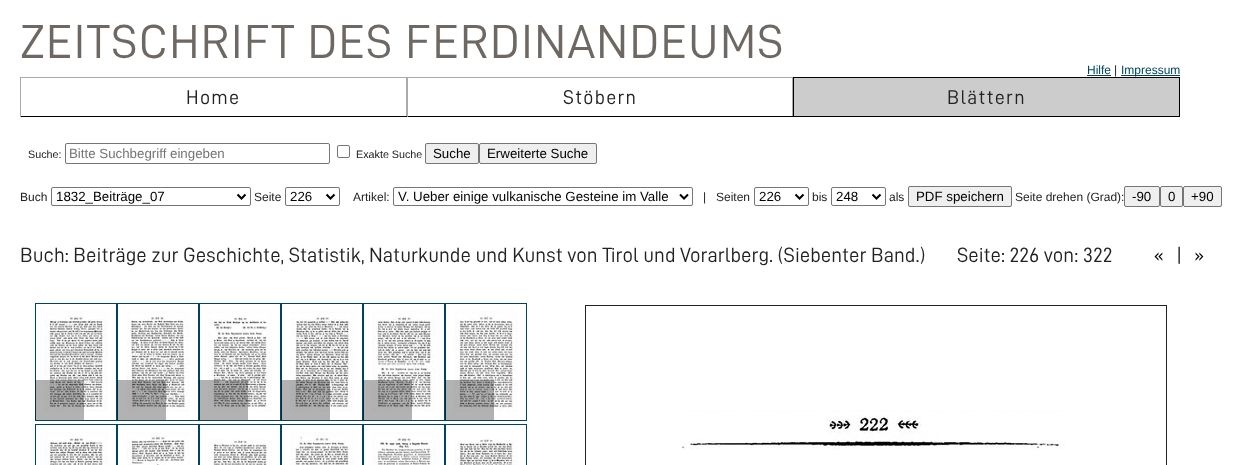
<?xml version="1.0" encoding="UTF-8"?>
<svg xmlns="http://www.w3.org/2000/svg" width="1249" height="465">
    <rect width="100%" height="100%" fill="#FFFFFF"/>
    <text x="20" y="58" font-family="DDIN" font-size="48" letter-spacing="1.3" fill="#6D6863">ZEITSCHRIFT DES FERDINANDEUMS</text>
    <text x="1087" y="74" font-family="Liberation Sans" font-size="12" fill="#004461">Hilfe</text>
    <rect x="1087" y="75" width="24" height="1" fill="#004461"/>
    <text x="1114" y="74" font-family="Liberation Sans" font-size="12" fill="#222222">|</text>
    <rect x="1121" y="75" width="59" height="1" fill="#004461"/>
    <text x="1121" y="74" font-family="Liberation Sans" font-size="12" fill="#004461">Impressum</text>
    <rect x="20" y="77" width="773" height="1" fill="#AAAAAA"/>
    <rect x="406" y="77" width="1" height="40" fill="#AAAAAA"/>
    <rect x="20" y="116" width="387" height="1" fill="#000000"/>
    <rect x="20" y="77" width="1" height="40" fill="#AAAAAA"/>
    <text x="186" y="104" font-family="DDIN" font-size="20" letter-spacing="1.3" fill="#222222">Home</text>
    <rect x="792" y="77" width="1" height="40" fill="#AAAAAA"/>
    <rect x="407" y="116" width="386" height="1" fill="#000000"/>
    <rect x="407" y="77" width="1" height="40" fill="#AAAAAA"/>
    <text x="563" y="104" font-family="DDIN" font-size="20" letter-spacing="1.3" fill="#222222">Stöbern</text>
    <rect x="793.5" y="77.5" width="386" height="39" fill="#CCCCCC" stroke="#000000"/>
    <text x="947" y="104" font-family="DDIN" font-size="20" letter-spacing="1.3" fill="#222222">Blättern</text>
    <text x="28" y="158" font-family="Liberation Sans" font-size="10.75" fill="#222222">Suche:</text>
    <rect x="65.5" y="143.5" width="264" height="20" rx="1.5" fill="none" stroke="#767676"/>
    <text x="69" y="158" font-family="Liberation Sans" font-size="13.3" fill="#757575">Bitte Suchbegriff eingeben</text>
    <rect x="337.5" y="145.5" width="12" height="12" rx="1.5" fill="none" stroke="#767676"/>
    <text x="356" y="158" font-family="Liberation Sans" font-size="10.75" fill="#222222">Exakte Suche</text>
    <rect x="425.5" y="143.5" width="53" height="20" rx="1.5" fill="#EFEFEF" stroke="#767676"/>
    <text x="433" y="158" font-family="Liberation Sans" font-size="13.3" fill="#000000">Suche</text>
    <rect x="479.5" y="143.5" width="117" height="20" rx="1.5" fill="#EFEFEF" stroke="#767676"/>
    <text x="487" y="158" font-family="Liberation Sans" font-size="13.3" fill="#000000">Erweiterte Suche</text>
    <text x="20" y="201" font-family="Liberation Sans" font-size="12" fill="#222222">Buch</text>
    <rect x="51.5" y="187.5" width="199" height="18" rx="1.5" fill="none" stroke="#767676"/>
    <path d="M 237.5 194.5 L 241.5 198.5 L 245.5 194.5" fill="none" stroke="#000000" stroke-width="2"/>
    <text x="56" y="201" font-family="Liberation Sans" font-size="13.3" fill="#000000">1832_Beiträge_07</text>
    <text x="254" y="201" font-family="Liberation Sans" font-size="12" fill="#222222">Seite</text>
    <rect x="285.5" y="187.5" width="54" height="18" rx="1.5" fill="none" stroke="#767676"/>
    <path d="M 326.5 194.5 L 330.5 198.5 L 334.5 194.5" fill="none" stroke="#000000" stroke-width="2"/>
    <text x="290" y="201" font-family="Liberation Sans" font-size="13.3" fill="#000000">226</text>
    <text x="353" y="201" font-family="Liberation Sans" font-size="12" fill="#222222">Artikel:</text>
    <rect x="393.5" y="187.5" width="299" height="18" rx="1.5" fill="none" stroke="#767676"/>
    <path d="M 680 194.5 L 684 198.5 L 688 194.5" fill="none" stroke="#000000" stroke-width="2"/>
    <text x="398" y="201" font-family="Liberation Sans" font-size="13.3" fill="#000000">V. Ueber einige vulkanische Gesteine im Valle</text>
    <text x="703" y="201" font-family="Liberation Sans" font-size="12" fill="#222222">|</text>
    <text x="716" y="201" font-family="Liberation Sans" font-size="12" fill="#222222">Seiten</text>
    <rect x="754.5" y="187.5" width="54" height="18" rx="1.5" fill="none" stroke="#767676"/>
    <path d="M 795.5 194.5 L 799.5 198.5 L 803.5 194.5" fill="none" stroke="#000000" stroke-width="2"/>
    <text x="759" y="201" font-family="Liberation Sans" font-size="13.3" fill="#000000">226</text>
    <text x="812" y="201" font-family="Liberation Sans" font-size="12" fill="#222222">bis</text>
    <rect x="831.5" y="187.5" width="54" height="18" rx="1.5" fill="none" stroke="#767676"/>
    <path d="M 872.5 194.5 L 876.5 198.5 L 880.5 194.5" fill="none" stroke="#000000" stroke-width="2"/>
    <text x="836" y="201" font-family="Liberation Sans" font-size="13.3" fill="#000000">248</text>
    <text x="889" y="201" font-family="Liberation Sans" font-size="12" fill="#222222">als</text>
    <rect x="908.5" y="186.5" width="103" height="20" rx="1.5" fill="#EFEFEF" stroke="#767676"/>
    <text x="916" y="201" font-family="Liberation Sans" font-size="13.3" fill="#000000">PDF speichern</text>
    <text x="1015" y="201" font-family="Liberation Sans" font-size="12" fill="#222222">Seite drehen (Grad):</text>
    <rect x="1124.5" y="186.5" width="35" height="20" rx="1.5" fill="#EFEFEF" stroke="#767676"/>
    <text x="1132" y="201" font-family="Liberation Sans" font-size="13.3" fill="#000000">-90</text>
    <rect x="1160.5" y="186.5" width="22" height="20" rx="1.5" fill="#EFEFEF" stroke="#767676"/>
    <text x="1168" y="201" font-family="Liberation Sans" font-size="13.3" fill="#000000">0</text>
    <rect x="1183.5" y="186.5" width="38" height="20" rx="1.5" fill="#EFEFEF" stroke="#767676"/>
    <text x="1191" y="201" font-family="Liberation Sans" font-size="13.3" fill="#000000">+90</text>
    <text x="20" y="262" font-family="DDIN" font-size="20.75" fill="#222222" xml:space="preserve">Buch: Beiträge zur Geschichte, Statistik, Naturkunde und Kunst von Tirol und Vorarlberg. (Siebenter Band.)       Seite: 226 von: 322</text>
    <text x="1154" y="262" font-family="DDIN" font-size="20.75" fill="#000000">«</text>
    <text x="1176" y="262" font-family="DDIN" font-size="20.75" fill="#222222">|</text>
    <text x="1194" y="262" font-family="DDIN" font-size="20.75" fill="#000000">»</text>
    <rect x="35.5" y="303.5" width="81" height="117" fill="none" stroke="#004461"/>
    <image x="44" y="311" width="64" height="101" href="img_01.png"/>
    <rect x="35" y="380" width="49" height="40" fill="#000000" fill-opacity="0.3"/>
    <rect x="117.5" y="303.5" width="81" height="117" fill="none" stroke="#004461"/>
    <image x="126" y="311" width="64" height="101" href="img_02.png"/>
    <rect x="117" y="380" width="49" height="40" fill="#000000" fill-opacity="0.3"/>
    <text x="142" y="403" font-family="Liberation Serif" font-size="14" fill="#B0B0B0">207</text>
    <rect x="199.5" y="303.5" width="81" height="117" fill="none" stroke="#004461"/>
    <image x="208" y="311" width="64" height="101" href="img_03.png"/>
    <rect x="199" y="380" width="49" height="40" fill="#000000" fill-opacity="0.3"/>
    <rect x="281.5" y="303.5" width="81" height="117" fill="none" stroke="#004461"/>
    <image x="290" y="311" width="64" height="101" href="img_04.png"/>
    <rect x="281" y="380" width="49" height="40" fill="#000000" fill-opacity="0.3"/>
    <text x="306" y="403" font-family="Liberation Serif" font-size="14" fill="#B0B0B0">209</text>
    <rect x="363.5" y="303.5" width="81" height="117" fill="none" stroke="#004461"/>
    <image x="372" y="311" width="64" height="101" href="img_05.png"/>
    <rect x="363" y="380" width="49" height="40" fill="#000000" fill-opacity="0.3"/>
    <text x="388" y="403" font-family="Liberation Serif" font-size="14" fill="#B0B0B0">210</text>
    <rect x="445.5" y="303.5" width="81" height="117" fill="none" stroke="#004461"/>
    <image x="454" y="311" width="64" height="101" href="img_06.png"/>
    <rect x="445" y="380" width="49" height="40" fill="#000000" fill-opacity="0.3"/>
    <text x="470" y="403" font-family="Liberation Serif" font-size="14" fill="#B0B0B0">211</text>
    <rect x="35.5" y="424.5" width="81" height="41" fill="none" stroke="#004461"/>
    <image x="44" y="432" width="64" height="33" href="img_07.png"/>
    <rect x="117.5" y="424.5" width="81" height="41" fill="none" stroke="#004461"/>
    <image x="126" y="432" width="64" height="33" href="img_08.png"/>
    <rect x="199.5" y="424.5" width="81" height="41" fill="none" stroke="#004461"/>
    <image x="208" y="439" width="64" height="26" href="img_09.png"/>
    <rect x="281.5" y="424.5" width="81" height="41" fill="none" stroke="#004461"/>
    <image x="290" y="432" width="64" height="33" href="img_10.png"/>
    <rect x="363.5" y="424.5" width="81" height="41" fill="none" stroke="#004461"/>
    <image x="372" y="432" width="64" height="33" href="img_11.png"/>
    <rect x="445.5" y="424.5" width="81" height="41" fill="none" stroke="#004461"/>
    <image x="454" y="439" width="64" height="26" href="img_12.png"/>
    <rect x="585.5" y="305.5" width="581" height="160" fill="none" stroke="#222222"/>
    <image x="682" y="410" width="384" height="40" href="img_13.png"/>
</svg>
